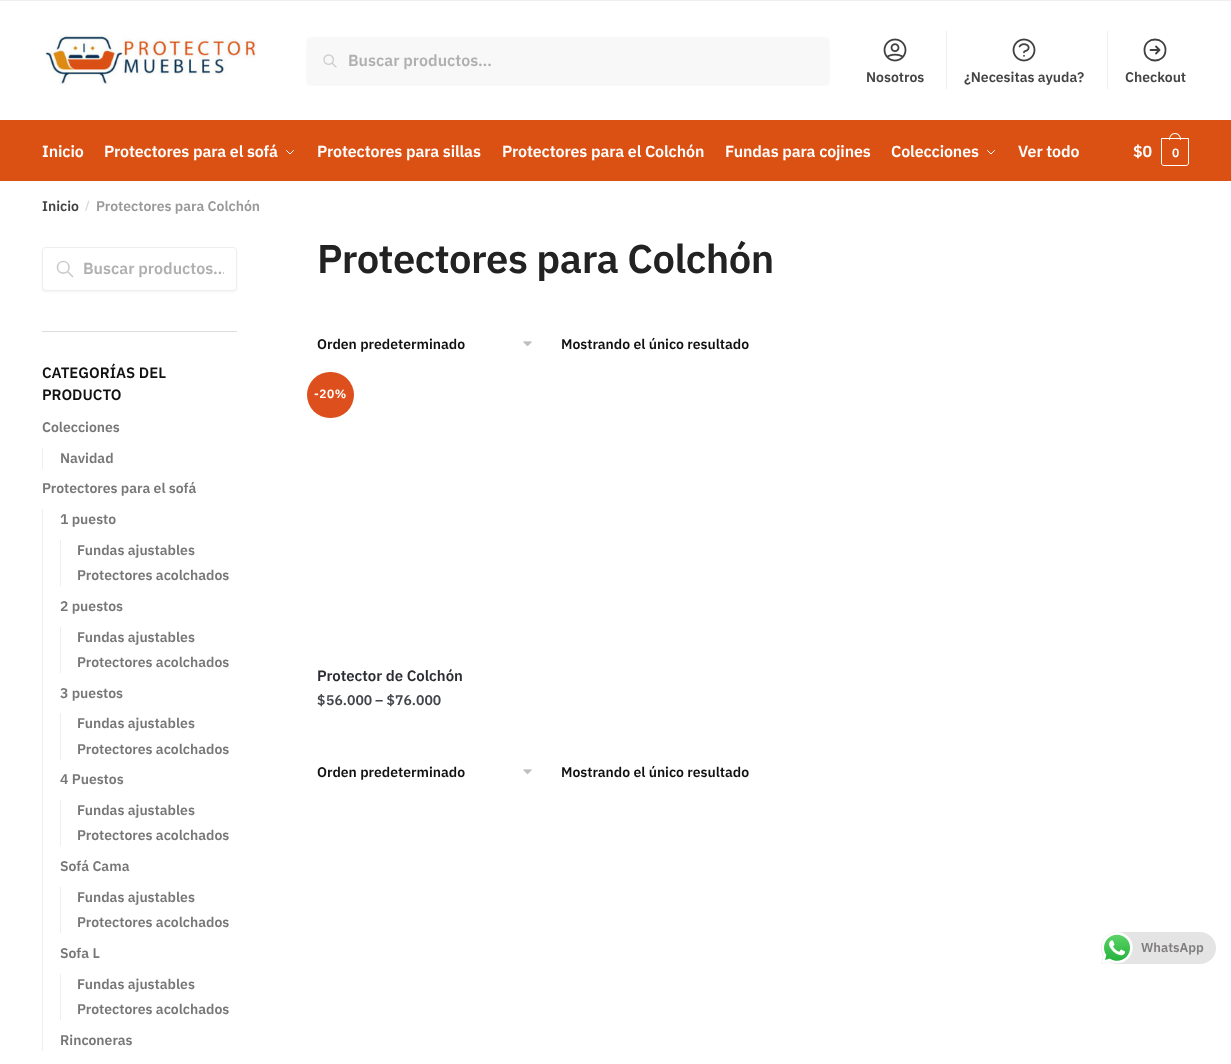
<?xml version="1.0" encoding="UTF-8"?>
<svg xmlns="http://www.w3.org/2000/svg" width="1231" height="1064">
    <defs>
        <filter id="blur1" x="-50%" y="-200%" width="200%" height="500%"><feGaussianBlur stdDeviation="1"/></filter>
        <clipPath id="clip1"><rect x="83" y="258" width="141" height="20"/></clipPath>
    </defs>
    <rect width="100%" height="100%" fill="#FFFFFF"/>
    <rect x="0" y="0" width="1231" height="1" fill="#EEEEEE"/>
    <image x="44" y="35" width="212" height="50" href="img_01.png"/>
    <rect x="307" y="38" width="522" height="47" rx="4" fill="#000000" fill-opacity="0.05" filter="url(#blur1)"/>
    <rect x="307" y="37" width="522" height="47" rx="4" fill="#F8F8F8"/>
    <image x="323" y="54" width="14" height="14" href="img_02.png"/>
    <text x="348" y="66" font-family="IBM Plex Sans" font-size="16" font-weight="600" fill="#B0B0B0">Buscar productos…</text>
    <image x="883" y="38" width="24" height="24" href="img_03.png"/>
    <text x="866" y="82" font-family="IBM Plex Sans" font-size="14" font-weight="600" fill="#444444">Nosotros</text>
    <rect x="946" y="31" width="1" height="58" fill="#EEEEEE"/>
    <image x="1012" y="38" width="24" height="24" href="img_04.png"/>
    <text x="964" y="82" font-family="IBM Plex Sans" font-size="14" font-weight="600" fill="#444444">¿Necesitas ayuda?</text>
    <rect x="1107" y="31" width="1" height="58" fill="#EEEEEE"/>
    <path d="M 1156 46.5 L 1159.5 50 M 1159.5 50 L 1156 53.5 M 1159.5 50 H 1150.5 M 1165.5 50 C 1165.5 64 1144.5 64 1144.5 50 C 1144.5 36 1165.5 36 1165.5 50 Z" fill="none" stroke="#404040" stroke-width="1.8" stroke-linecap="round" stroke-linejoin="round"/>
    <text x="1125" y="82" font-family="IBM Plex Sans" font-size="14" font-weight="600" fill="#444444">Checkout</text>
    <rect x="0" y="120" width="1231" height="61" fill="#DB5114"/>
    <text x="42" y="157" font-family="IBM Plex Sans" font-size="16" font-weight="600" letter-spacing="-0.1" fill="#FFFFFF">Inicio</text>
    <text x="104" y="157" font-family="IBM Plex Sans" font-size="16" font-weight="600" letter-spacing="-0.1" fill="#FFFFFF">Protectores para el sofá</text>
    <path d="M 293.5 150.5 L 290 154 L 286.5 150.5" fill="none" stroke="#FFFFFF" stroke-linecap="round" stroke-linejoin="round"/>
    <text x="317" y="157" font-family="IBM Plex Sans" font-size="16" font-weight="600" letter-spacing="-0.1" fill="#FFFFFF">Protectores para sillas</text>
    <text x="502" y="157" font-family="IBM Plex Sans" font-size="16" font-weight="600" letter-spacing="-0.1" fill="#FFFFFF">Protectores para el Colchón</text>
    <text x="725" y="157" font-family="IBM Plex Sans" font-size="16" font-weight="600" letter-spacing="-0.1" fill="#FFFFFF">Fundas para cojines</text>
    <text x="891" y="157" font-family="IBM Plex Sans" font-size="16" font-weight="600" letter-spacing="-0.1" fill="#FFFFFF">Colecciones</text>
    <path d="M 994.5 150.5 L 991 154 L 987.5 150.5" fill="none" stroke="#FFFFFF" stroke-linecap="round" stroke-linejoin="round"/>
    <text x="1018" y="157" font-family="IBM Plex Sans" font-size="16" font-weight="600" letter-spacing="-0.1" fill="#FFFFFF">Ver todo</text>
    <text x="1133" y="157" font-family="IBM Plex Sans" font-size="16" font-weight="600" letter-spacing="-0.1" fill="#FFFFFF">$0</text>
    <path d="M 1161.5 138.5 H 1188.5 V 163 C 1188.5 164.5 1187.5 165.5 1186 165.5 H 1164 C 1162.5 165.5 1161.5 164.5 1161.5 163 Z" fill="none" stroke="#FFFFFF"/>
    <path d="M 1175 133 C 1179 133 1181 136.5 1181 140 H 1169 C 1169 136.5 1171 133 1175 133 Z M 1175 134 C 1178.5 134 1180 137 1180 140 H 1170 C 1170 137 1171.5 134 1175 134 Z" fill="#FFFFFF" fill-rule="evenodd"/>
    <text x="1172" y="157" font-family="IBM Plex Sans" font-size="12" font-weight="600" letter-spacing="-1" fill="#FFFFFF">0</text>
    <text x="42" y="211" font-family="IBM Plex Sans" font-size="14" font-weight="600" fill="#444444">Inicio</text>
    <text x="85" y="209" font-family="IBM Plex Sans" font-size="11" font-weight="600" fill="#D6D6D6">/</text>
    <text x="96" y="211" font-family="IBM Plex Sans" font-size="14" font-weight="600" fill="#999999">Protectores para Colchón</text>
    <rect x="42" y="331" width="195" height="1" fill="#DDDDDD"/>
    <rect x="42" y="248" width="195" height="44" rx="4" fill="#000000" fill-opacity="0.05" filter="url(#blur1)"/>
    <rect x="42.5" y="247.5" width="194" height="43" rx="3.5" fill="#FFFFFF" stroke="#EEEEEE"/>
    <path d="M 72.5 276.5 L 67.5 271.5 M 69 267.5 C 69 275 57.5 275 57.5 267.5 C 57.5 259.5 69 259.5 69 267.5 Z" fill="none" stroke="#CCCCCC" stroke-width="1.7" stroke-linecap="round" stroke-linejoin="round"/>
    <g clip-path="url(#clip1)">
        <text x="83" y="274" font-family="IBM Plex Sans" font-size="16" font-weight="600" fill="#B0B0B0">Buscar productos…</text>
    </g>
    <text font-family="IBM Plex Sans" font-size="15" font-weight="600" fill="#111111">
        <tspan x="42" y="378">CATEGORÍAS DEL</tspan>
        <tspan x="42" y="400">PRODUCTO</tspan>
    </text>
    <text x="42" y="432" font-family="IBM Plex Sans" font-size="14" font-weight="600" fill="#777777">Colecciones</text>
    <rect x="42" y="448" width="1" height="21" fill="#EEEEEE"/>
    <text x="60" y="463" font-family="IBM Plex Sans" font-size="14" font-weight="600" fill="#777777">Navidad</text>
    <text x="42" y="493" font-family="IBM Plex Sans" font-size="14" font-weight="600" fill="#777777">Protectores para el sofá</text>
    <rect x="42" y="509" width="1" height="542" fill="#EEEEEE"/>
    <text x="60" y="524" font-family="IBM Plex Sans" font-size="14" font-weight="600" fill="#777777">1 puesto</text>
    <rect x="60" y="540" width="1" height="46" fill="#EEEEEE"/>
    <text font-family="IBM Plex Sans" font-size="14" font-weight="600" fill="#777777">
        <tspan x="77" y="555">Fundas ajustables</tspan>
        <tspan x="77" y="580">Protectores acolchados</tspan>
    </text>
    <text x="60" y="611" font-family="IBM Plex Sans" font-size="14" font-weight="600" fill="#777777">2 puestos</text>
    <rect x="60" y="627" width="1" height="46" fill="#EEEEEE"/>
    <text font-family="IBM Plex Sans" font-size="14" font-weight="600" fill="#777777">
        <tspan x="77" y="642">Fundas ajustables</tspan>
        <tspan x="77" y="667">Protectores acolchados</tspan>
    </text>
    <text x="60" y="698" font-family="IBM Plex Sans" font-size="14" font-weight="600" fill="#777777">3 puestos</text>
    <rect x="60" y="713" width="1" height="47" fill="#EEEEEE"/>
    <text font-family="IBM Plex Sans" font-size="14" font-weight="600" fill="#777777">
        <tspan x="77" y="728">Fundas ajustables</tspan>
        <tspan x="77" y="754">Protectores acolchados</tspan>
    </text>
    <text x="60" y="784" font-family="IBM Plex Sans" font-size="14" font-weight="600" fill="#777777">4 Puestos</text>
    <rect x="60" y="800" width="1" height="46" fill="#EEEEEE"/>
    <text font-family="IBM Plex Sans" font-size="14" font-weight="600" fill="#777777">
        <tspan x="77" y="815">Fundas ajustables</tspan>
        <tspan x="77" y="840">Protectores acolchados</tspan>
    </text>
    <text x="60" y="871" font-family="IBM Plex Sans" font-size="14" font-weight="600" fill="#777777">Sofá Cama</text>
    <rect x="60" y="887" width="1" height="46" fill="#EEEEEE"/>
    <text font-family="IBM Plex Sans" font-size="14" font-weight="600" fill="#777777">
        <tspan x="77" y="902">Fundas ajustables</tspan>
        <tspan x="77" y="927">Protectores acolchados</tspan>
    </text>
    <text x="60" y="958" font-family="IBM Plex Sans" font-size="14" font-weight="600" fill="#777777">Sofa L</text>
    <rect x="60" y="974" width="1" height="46" fill="#EEEEEE"/>
    <text font-family="IBM Plex Sans" font-size="14" font-weight="600" fill="#777777">
        <tspan x="77" y="989">Fundas ajustables</tspan>
        <tspan x="77" y="1014">Protectores acolchados</tspan>
    </text>
    <text x="60" y="1045" font-family="IBM Plex Sans" font-size="14" font-weight="600" fill="#777777">Rinconeras</text>
    <text x="317" y="273" font-family="IBM Plex Sans" font-size="40" font-weight="600" letter-spacing="-0.5" fill="#222222">Protectores para Colchón</text>
    <image x="523" y="341" width="9" height="6" href="img_05.png"/>
    <text x="317" y="349" font-family="IBM Plex Sans" font-size="14" font-weight="600" fill="#111111">Orden predeterminado</text>
    <text x="561" y="349" font-family="IBM Plex Sans" font-size="14" font-weight="600" fill="#111111">Mostrando el único resultado</text>
    <rect x="307" y="372" width="47" height="46" rx="23" fill="#DD4F1C"/>
    <text x="314" y="398" font-family="IBM Plex Sans" font-size="12" font-weight="600" letter-spacing="0.5" fill="#FFFFFF">-20%</text>
    <text x="317" y="681" font-family="IBM Plex Sans" font-size="15" font-weight="600" fill="#2C2D33">Protector de Colchón</text>
    <text x="317" y="705" font-family="IBM Plex Sans" font-size="14" font-weight="600" fill="#43454B">$</text>
    <text x="326" y="705" font-family="IBM Plex Sans" font-size="14" font-weight="600" fill="#43454B">56.000</text>
    <text x="375" y="705" font-family="IBM Plex Sans" font-size="14" font-weight="600" fill="#43454B">– $</text>
    <text x="395" y="705" font-family="IBM Plex Sans" font-size="14" font-weight="600" fill="#43454B">76.000</text>
    <image x="523" y="769" width="9" height="6" href="img_05.png"/>
    <text x="317" y="777" font-family="IBM Plex Sans" font-size="14" font-weight="600" fill="#111111">Orden predeterminado</text>
    <text x="561" y="777" font-family="IBM Plex Sans" font-size="14" font-weight="600" fill="#111111">Mostrando el único resultado</text>
    <rect x="1101" y="932" width="115" height="32" rx="16" fill="#E4E4E4"/>
    <image x="1101" y="932" width="32" height="32" href="img_06.png"/>
    <text x="1141" y="952" font-family="IBM Plex Sans" font-size="13" font-weight="600" fill="#7F7D7D">WhatsApp</text>
</svg>
